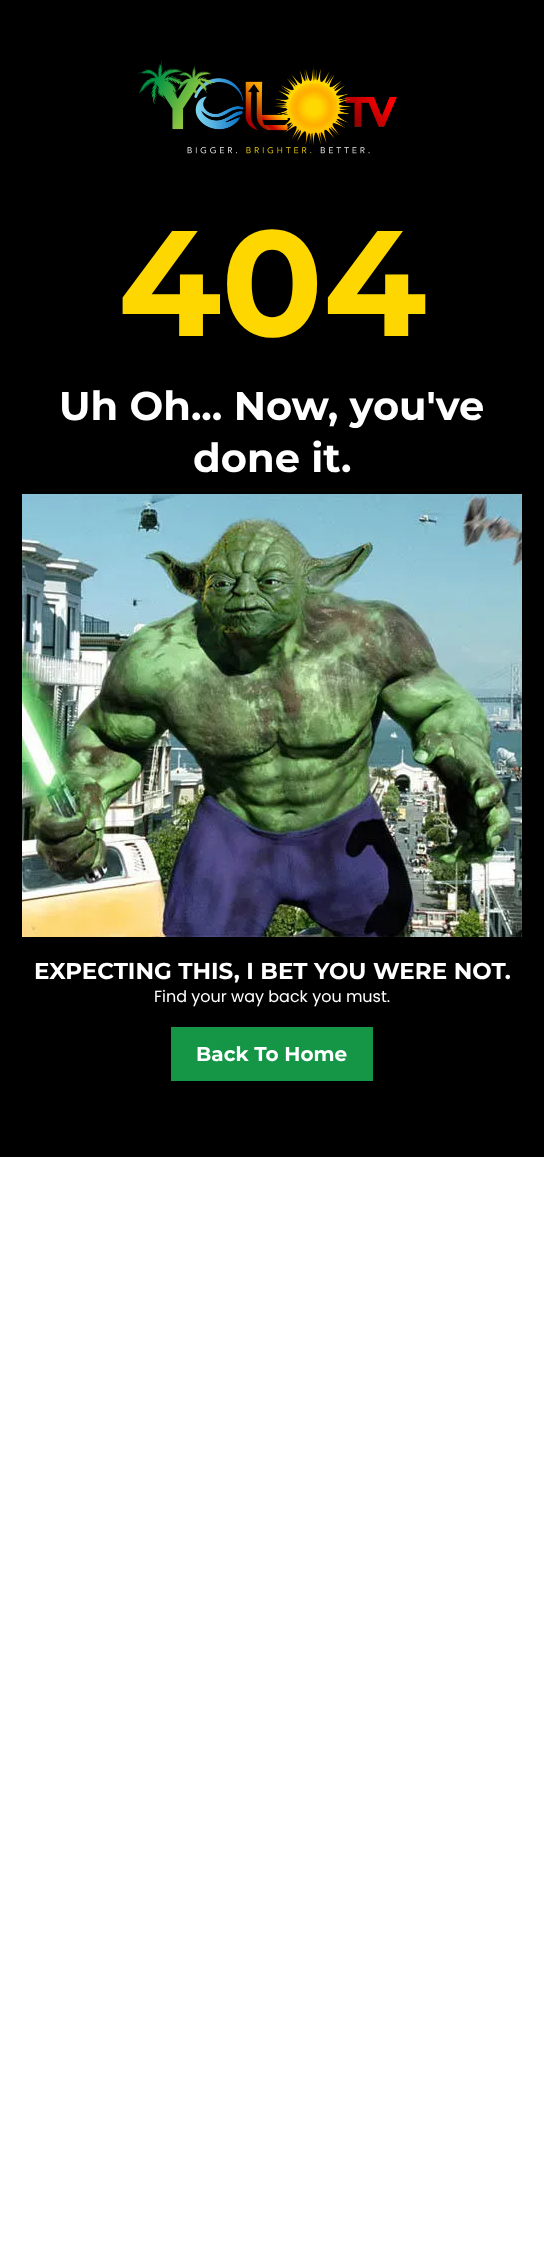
<?xml version="1.0" encoding="UTF-8"?>
<svg xmlns="http://www.w3.org/2000/svg" width="544" height="2258">
    <rect width="100%" height="100%" fill="#FFFFFF"/>
    <rect x="0" y="0" width="544" height="1157" fill="#000000"/>
    <image x="138" y="60" width="259" height="94" href="img_01.png"/>
    <text x="118" y="336" font-family="Montserrat" font-size="150" font-weight="700" fill="#FED600">404</text>
    <text x="59" y="420" font-family="Montserrat" font-size="40" font-weight="700" fill="#FFFFFF">Uh Oh... Now, you've</text>
    <text x="193" y="472" font-family="Montserrat" font-size="40" font-weight="700" fill="#FFFFFF">done it.</text>
    <image x="22" y="494" width="500" height="443" href="img_02.png"/>
    <text x="34" y="979" font-family="Montserrat" font-size="23" font-weight="700" fill="#FFFFFF">EXPECTING THIS, I BET YOU WERE NOT.</text>
    <text x="154" y="1002" font-family="Poppins" font-size="16" fill="#FFFFFF">Find your way back you must.</text>
    <rect x="171" y="1027" width="202" height="54" fill="#159647"/>
    <text x="196" y="1061" font-family="Montserrat" font-size="20" font-weight="700" fill="#FFFFFF">Back To Home</text>
</svg>
